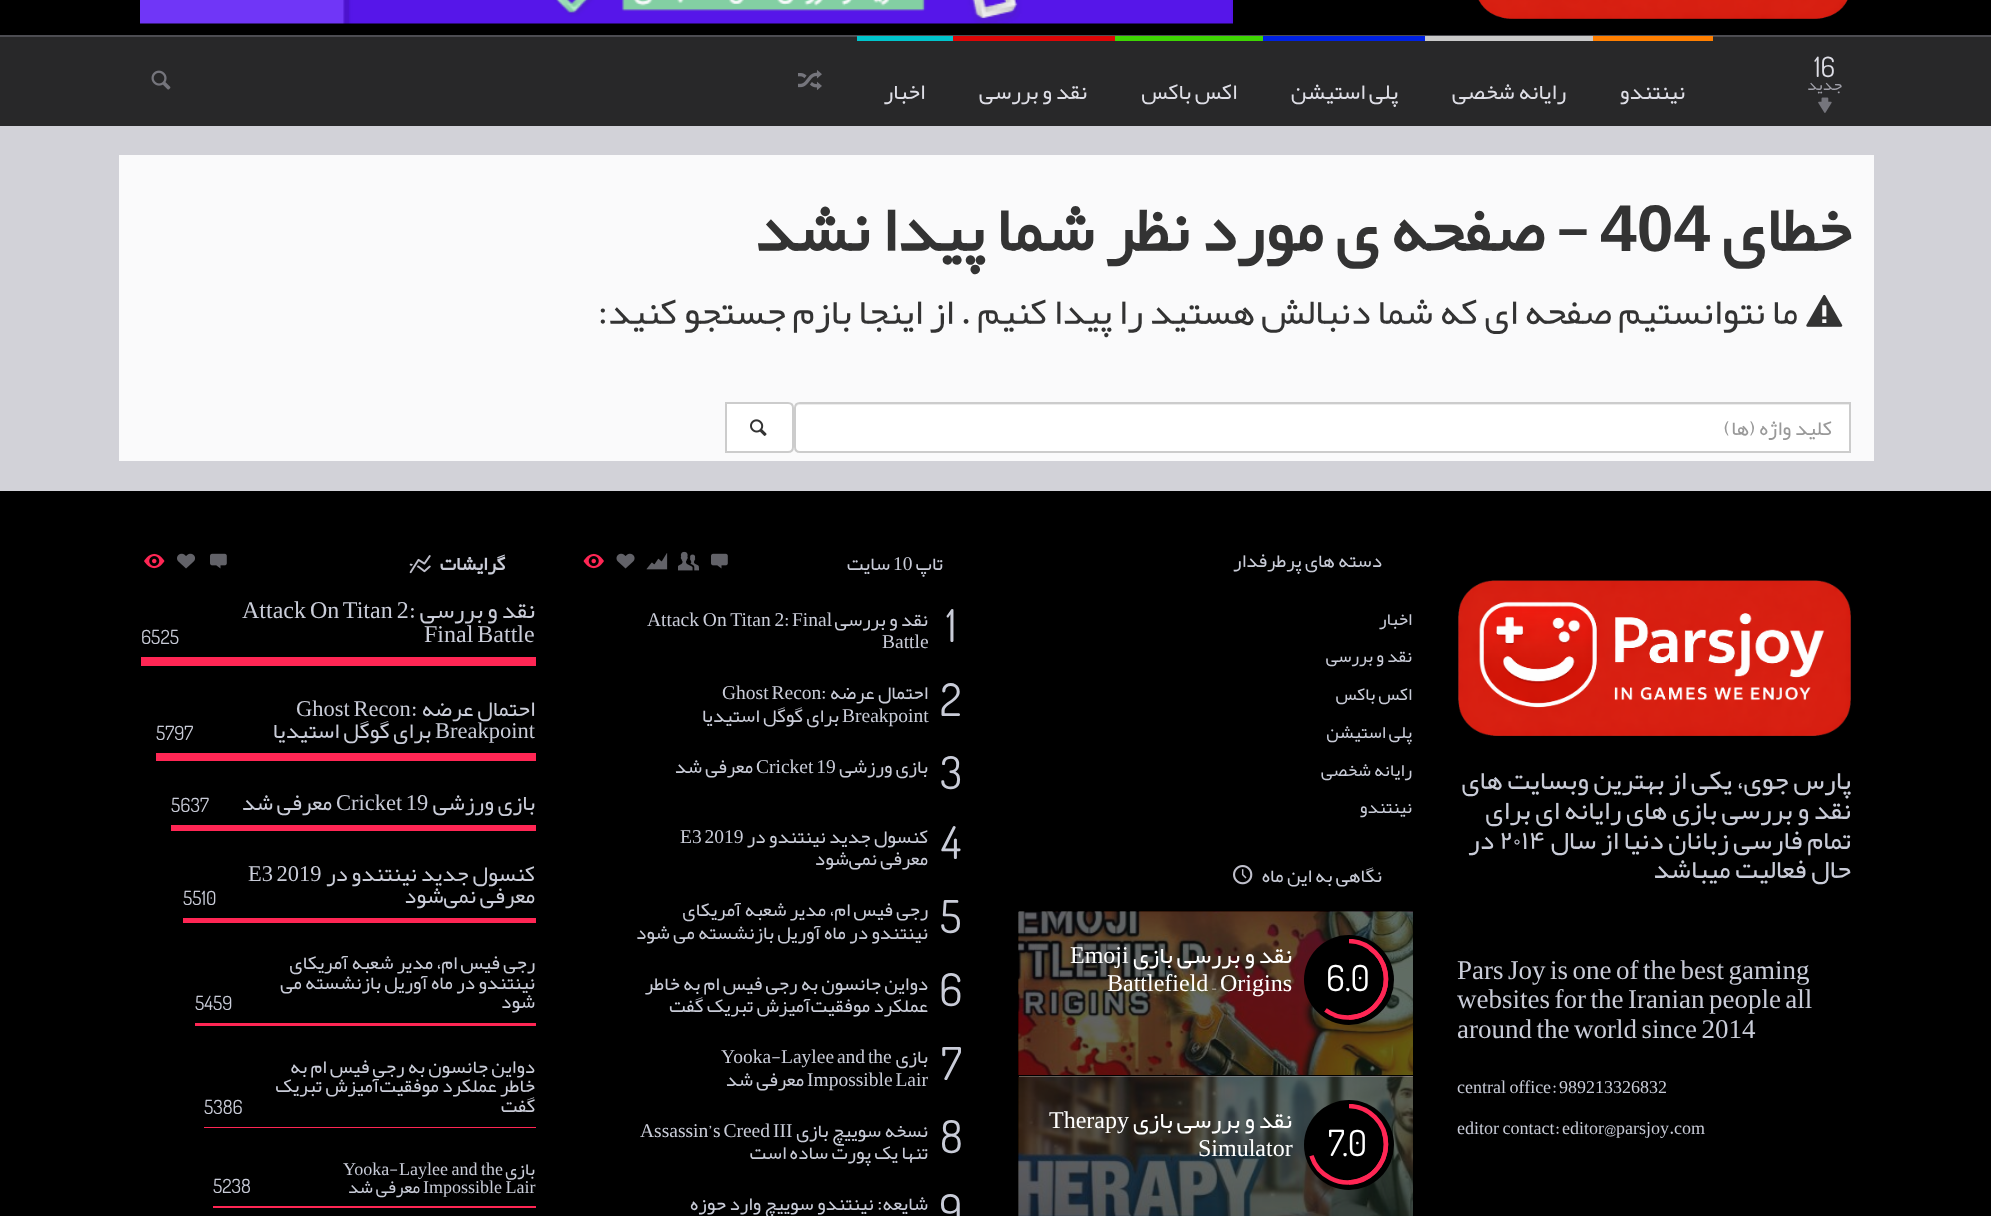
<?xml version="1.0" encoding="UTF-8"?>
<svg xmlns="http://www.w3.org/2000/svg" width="1991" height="1216">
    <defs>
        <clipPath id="clip1"><path d="M 1356.5 1036 L 1324 1012 L 1372.5 945 L 1405 969 Z"/></clipPath>
        <clipPath id="clip2"><rect x="1349" y="939" width="40" height="81"/></clipPath>
        <clipPath id="clip3"><path d="M 1321.5 1195.5 L 1309 1156.5 L 1387.5 1131 L 1400 1170 Z"/></clipPath>
        <clipPath id="clip4"><rect x="1349" y="1104" width="40" height="81"/></clipPath>
    </defs>
    <rect width="100%" height="100%" fill="#D2D2D8"/>
    <rect x="0" y="0" width="1991" height="35" fill="#000000"/>
    <image x="1478" y="0" width="370" height="19" href="img_01.png"/>
    <image x="140" y="0" width="1093" height="24" href="img_02.png"/>
    <rect x="0" y="37" width="1991" height="89" fill="#282829"/>
    <rect x="0" y="35" width="1991" height="2" fill="#4D4D52"/>
    <text x="1814" y="77" font-family="Dosis" font-size="28" fill="#DEDEE6">16</text>
    <text x="1842" y="90" font-family="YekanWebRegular" font-size="16.5" direction="rtl" fill="#9F9FA8">جدید</text>
    <image x="1818" y="97" width="14" height="16" href="img_03.png"/>
    <image x="798" y="70" width="24" height="20" href="img_04.png"/>
    <rect x="1593" y="36" width="120" height="5" fill="#FF7F00"/>
    <text x="1685" y="99" font-family="YekanWebRegular" font-size="22.5" direction="rtl" fill="#DEDEE6">نینتندو</text>
    <rect x="1425" y="36" width="168" height="5" fill="#C9C9C9"/>
    <text x="1566" y="99" font-family="YekanWebRegular" font-size="22.5" direction="rtl" fill="#DEDEE6">رایانه شخصی</text>
    <rect x="1263" y="36" width="162" height="5" fill="#0022E2"/>
    <text x="1398" y="99" font-family="YekanWebRegular" font-size="22.5" direction="rtl" fill="#DEDEE6">پلی استیشن</text>
    <rect x="1115" y="36" width="148" height="5" fill="#3ED602"/>
    <text x="1237" y="99" font-family="YekanWebRegular" font-size="22.5" direction="rtl" fill="#DEDEE6">اکس باکس</text>
    <rect x="953" y="36" width="162" height="5" fill="#DD0606"/>
    <text x="1087" y="99" font-family="YekanWebRegular" font-size="22.5" direction="rtl" fill="#DEDEE6">نقد و بررسی</text>
    <rect x="857" y="36" width="96" height="5" fill="#00C5CC"/>
    <text x="925" y="99" font-family="YekanWebRegular" font-size="22.5" direction="rtl" fill="#DEDEE6">اخبار</text>
    <image x="151" y="70" width="20" height="20" href="img_05.png"/>
    <rect x="119" y="155" width="1755" height="306" fill="#FAFAFB"/>
    <text x="1851" y="251" font-family="YekanWebRegular" font-size="66" font-weight="700" direction="rtl" fill="#333333">خطای</text>
    <text x="1600" y="251" font-family="Liberation Sans" font-size="66" font-weight="700" fill="#333333">404</text>
    <text x="1589" y="251" font-family="YekanWebRegular" font-size="66" font-weight="700" direction="rtl" fill="#333333">- صفحه ی مورد نظر شما پیدا نشد</text>
    <image x="1806" y="294" width="37" height="33" href="img_06.png"/>
    <text x="1798" y="324" font-family="YekanWebRegular" font-size="37.5" direction="rtl" fill="#333333">ما نتوانستیم صفحه ای که شما دنبالش هستید را پیدا کنیم . از اینجا بازم جستجو کنید:</text>
    <path d="M 800 402 H 1851 V 453 H 800 C 796.5 453 794 450.5 794 447 V 408 C 794 404.5 796.5 402 800 402 Z" fill="#FFFFFF"/>
    <path d="M 800 405 H 1850 V 404 H 800 C 797 404 795 407 795 410 C 795 407 797 405 800 405 Z" fill="#ECECEC"/>
    <path d="M 800 403 H 1850 V 452 H 800 C 797 452 795 450 795 447 V 408 C 795 405 797 403 800 403 Z" fill="none" stroke="#CCCCCC" stroke-width="2"/>
    <text x="1832" y="435" font-family="YekanWebRegular" font-size="21" direction="rtl" fill="#999999">کلید واژه (ها)</text>
    <path d="M 726 403 H 788 C 791 403 793 405 793 408 V 447 C 793 450 791 452 788 452 H 726 Z" fill="#FFFFFF" stroke="#CCCCCC" stroke-width="2"/>
    <image x="750" y="419" width="17" height="17" href="img_07.png"/>
    <rect x="0" y="491" width="1991" height="725" fill="#000000"/>
    <image x="1458" y="580" width="393" height="156" href="img_08.png"/>
    <text font-family="YekanWebRegular" font-size="27" direction="rtl" fill="#C9CCD8">
        <tspan x="1851" y="789">پارس جوی، یکی از بهترین وبسایت های</tspan>
        <tspan x="1851" y="819">نقد و بررسی بازی های رایانه ای برای</tspan>
        <tspan x="1851" y="849">تمام فارسی زبانان دنیا از سال</tspan>
    </text>
    <text x="1499" y="849" font-family="YekanWebRegular" font-size="27" fill="#C9CCD8">۲۰۱۴</text>
    <text x="1494" y="849" font-family="YekanWebRegular" font-size="27" direction="rtl" fill="#C9CCD8">در</text>
    <text x="1851" y="878" font-family="YekanWebRegular" font-size="27" direction="rtl" fill="#C9CCD8">حال فعالیت میباشد</text>
    <text font-family="Liberation Serif" font-size="27" fill="#C9CCD8">
        <tspan x="1457" y="979" word-spacing="-2.25">Pars Joy is one of the best gaming</tspan>
        <tspan x="1457" y="1008" word-spacing="-2.25">websites for the Iranian people all</tspan>
        <tspan x="1457" y="1038" word-spacing="-2.25">around the world since 2014</tspan>
    </text>
    <text x="1559" y="1093" font-family="Liberation Serif" font-size="18" fill="#C9CCD8">989213326832</text>
    <text x="1552" y="1093" font-family="YekanWebRegular" font-size="18" fill="#C9CCD8">:</text>
    <text x="1457" y="1093" word-spacing="-1" font-family="Liberation Serif" font-size="18" fill="#C9CCD8">central office</text>
    <text x="1674" y="1134" font-family="Liberation Serif" font-size="18" fill="#C9CCD8">com</text>
    <text x="1669" y="1134" font-family="YekanWebRegular" font-size="18" fill="#C9CCD8">.</text>
    <text x="1616" y="1134" font-family="Liberation Serif" font-size="18" fill="#C9CCD8">parsjoy</text>
    <text x="1562" y="1134" font-family="Liberation Serif" font-size="18" fill="#C9CCD8">editor</text>
    <text x="1604" y="1134" font-family="YekanWebRegular" font-size="18" fill="#C9CCD8">@</text>
    <text x="1555" y="1134" font-family="YekanWebRegular" font-size="18" fill="#C9CCD8">:</text>
    <text x="1457" y="1134" word-spacing="-1" font-family="Liberation Serif" font-size="18" fill="#C9CCD8">editor contact</text>
    <text x="1382" y="567" font-family="YekanWebRegular" font-size="19.5" direction="rtl" fill="#C9CCD8">دسته های پرطرفدار</text>
    <text x="1412" y="625" font-family="YekanWebRegular" font-size="18" direction="rtl" fill="#C9CCD8">اخبار</text>
    <text x="1412" y="662" font-family="YekanWebRegular" font-size="18" direction="rtl" fill="#C9CCD8">نقد و بررسی</text>
    <text x="1412" y="700" font-family="YekanWebRegular" font-size="18" direction="rtl" fill="#C9CCD8">اکس باکس</text>
    <text x="1412" y="738" font-family="YekanWebRegular" font-size="18" direction="rtl" fill="#C9CCD8">پلی استیشن</text>
    <text x="1412" y="776" font-family="YekanWebRegular" font-size="18" direction="rtl" fill="#C9CCD8">رایانه شخصی</text>
    <text x="1412" y="813" font-family="YekanWebRegular" font-size="18" direction="rtl" fill="#C9CCD8">نینتندو</text>
    <text x="1382" y="882" font-family="YekanWebRegular" font-size="19.5" direction="rtl" fill="#C9CCD8">نگاهی به این ماه</text>
    <image x="1233" y="865" width="20" height="20" href="img_09.png"/>
    <rect x="1019" y="1076" width="394" height="1" fill="#666666"/>
    <image x="1018" y="911" width="395" height="164" href="img_10.png"/>
    <circle cx="1349" cy="980" r="45" fill="#000000"/>
    <g clip-path="url(#clip1)">
        <path d="M 1325.5 1010 C 1308 997.5 1304.5 974 1317 956.5 C 1329 939.5 1353 936 1370 948.5 C 1387.5 960.5 1391 984.5 1378.5 1001.5 C 1366.5 1019 1342.5 1022.5 1325.5 1010 Z" fill="none" stroke="#FF2654" stroke-width="4.5"/>
    </g>
    <g clip-path="url(#clip2)">
        <path d="M 1348 1017.5 C 1326.5 1017.5 1309.5 1000.5 1309.5 979 C 1309.5 958 1326.5 941 1348 941 C 1369 941 1386 958 1386 979 C 1386 1000.5 1369 1017.5 1348 1017.5 Z" fill="none" stroke="#FF2654" stroke-width="4.5"/>
    </g>
    <text x="1326" y="991" font-family="Dosis" font-size="36" fill="#FFFFFF">6.0</text>
    <text x="1292" y="963" font-family="YekanWebRegular" font-size="24" direction="rtl" fill="#FFFFFF">نقد و بررسی بازی</text>
    <text x="1070" y="963" font-family="Liberation Serif" font-size="24" fill="#FFFFFF">Emoji</text>
    <text x="1220" y="991" font-family="Liberation Serif" font-size="24" fill="#FFFFFF">Origins</text>
    <text x="1212" y="991" font-family="YekanWebRegular" font-size="24" fill="#FFFFFF">–</text>
    <text x="1107" y="991" font-family="Liberation Serif" font-size="24" fill="#FFFFFF">Battlefield</text>
    <image x="1018" y="1076" width="395" height="140" href="img_11.png"/>
    <circle cx="1349" cy="1145" r="45" fill="#000000"/>
    <g clip-path="url(#clip3)">
        <path d="M 1311.5 1156 C 1305 1136 1316 1114.5 1336 1108 C 1356 1101.5 1377.5 1112.5 1384 1132.5 C 1390.5 1152.5 1379.5 1174 1359.5 1180.5 C 1339.5 1187 1318 1176 1311.5 1156 Z" fill="none" stroke="#FF2654" stroke-width="4.5"/>
    </g>
    <g clip-path="url(#clip4)">
        <path d="M 1348 1182.5 C 1326.5 1182.5 1309.5 1165.5 1309.5 1144 C 1309.5 1123 1326.5 1106 1348 1106 C 1369 1106 1386 1123 1386 1144 C 1386 1165.5 1369 1182.5 1348 1182.5 Z" fill="none" stroke="#FF2654" stroke-width="4.5"/>
    </g>
    <text x="1328" y="1156" font-family="Dosis" font-size="36" fill="#FFFFFF">7.0</text>
    <text x="1292" y="1128" font-family="YekanWebRegular" font-size="24" direction="rtl" fill="#FFFFFF">نقد و بررسی بازی</text>
    <text x="1049" y="1128" font-family="Liberation Serif" font-size="24" fill="#FFFFFF">Therapy</text>
    <text x="1198" y="1156" font-family="Liberation Serif" font-size="24" fill="#FFFFFF">Simulator</text>
    <text x="943" y="570" font-family="YekanWebRegular" font-size="19.5" direction="rtl" fill="#C9CCD8">تاپ</text>
    <text x="893" y="570" font-family="Liberation Serif" font-size="19.5" fill="#C9CCD8">10</text>
    <text x="890" y="570" font-family="YekanWebRegular" font-size="19.5" direction="rtl" fill="#C9CCD8">سایت</text>
    <image x="711" y="553" width="17" height="16" href="img_12.png"/>
    <image x="678" y="551" width="21" height="20" href="img_13.png"/>
    <image x="646" y="553" width="22" height="17" href="img_14.png"/>
    <image x="616" y="553" width="19" height="16" href="img_15.png"/>
    <image x="583" y="553" width="21" height="16" href="img_16.png"/>
    <text x="946" y="642" font-family="Dosis" font-size="45" fill="#C9CCD8">1</text>
    <text x="928" y="626" font-family="YekanWebRegular" font-size="19.5" direction="rtl" fill="#C9CCD8">نقد و بررسی</text>
    <text x="792" y="626" font-family="Liberation Serif" font-size="19.5" fill="#C9CCD8">Final</text>
    <text x="784" y="626" font-family="YekanWebRegular" font-size="19.5" fill="#C9CCD8">:</text>
    <text x="647" y="626" word-spacing="-1" font-family="Liberation Serif" font-size="19.5" fill="#C9CCD8">Attack On Titan 2</text>
    <text x="882" y="648" font-family="Liberation Serif" font-size="19.5" fill="#C9CCD8">Battle</text>
    <text x="940" y="716" font-family="Dosis" font-size="45" fill="#C9CCD8">2</text>
    <text x="928" y="699" font-family="YekanWebRegular" font-size="19.5" direction="rtl" fill="#C9CCD8">احتمال عرضه</text>
    <text x="821" y="699" font-family="YekanWebRegular" font-size="19.5" fill="#C9CCD8">:</text>
    <text x="722" y="699" word-spacing="-2" font-family="Liberation Serif" font-size="19.5" fill="#C9CCD8">Ghost Recon</text>
    <text x="842" y="722" font-family="Liberation Serif" font-size="19.5" fill="#C9CCD8">Breakpoint</text>
    <text x="839" y="722" font-family="YekanWebRegular" font-size="19.5" direction="rtl" fill="#C9CCD8">برای گوگل استیدیا</text>
    <text x="940" y="789" font-family="Dosis" font-size="45" fill="#C9CCD8">3</text>
    <text x="928" y="773" font-family="YekanWebRegular" font-size="19.5" direction="rtl" fill="#C9CCD8">بازی ورزشی</text>
    <text x="756" y="773" word-spacing="-2" font-family="Liberation Serif" font-size="19.5" fill="#C9CCD8">Cricket 19</text>
    <text x="753" y="773" font-family="YekanWebRegular" font-size="19.5" direction="rtl" fill="#C9CCD8">معرفی شد</text>
    <text x="941" y="859" font-family="Dosis" font-size="45" fill="#C9CCD8">4</text>
    <text x="928" y="843" font-family="YekanWebRegular" font-size="19.5" direction="rtl" fill="#C9CCD8">کنسول جدید نینتندو در</text>
    <text x="680" y="843" word-spacing="-2" font-family="Liberation Serif" font-size="19.5" fill="#C9CCD8">E3 2019</text>
    <text x="928" y="865" font-family="YekanWebRegular" font-size="19.5" direction="rtl" fill="#C9CCD8">معرفی نمی‌شود</text>
    <text x="940" y="933" font-family="Dosis" font-size="45" fill="#C9CCD8">5</text>
    <text font-family="YekanWebRegular" font-size="19.5" direction="rtl" fill="#C9CCD8">
        <tspan x="928" y="916">رجی فیس ام، مدیر شعبه آمریکای</tspan>
        <tspan x="928" y="939">نینتندو در ماه آوریل بازنشسته می‌ شود</tspan>
    </text>
    <text x="939" y="1006" font-family="Dosis" font-size="45" fill="#C9CCD8">6</text>
    <text font-family="YekanWebRegular" font-size="19.5" direction="rtl" fill="#C9CCD8">
        <tspan x="928" y="990">دواین جانسون به رجی فیس ام به خاطر</tspan>
        <tspan x="928" y="1012">عملکرد موفقیت‌آمیزش تبریک گفت</tspan>
    </text>
    <text x="941" y="1080" font-family="Dosis" font-size="45" fill="#C9CCD8">7</text>
    <text x="928" y="1063" font-family="YekanWebRegular" font-size="19.5" direction="rtl" fill="#C9CCD8">بازی</text>
    <text x="781" y="1063" word-spacing="-2" font-family="Liberation Serif" font-size="19.5" fill="#C9CCD8">Laylee and the</text>
    <text x="771" y="1063" font-family="YekanWebRegular" font-size="19.5" fill="#C9CCD8">-</text>
    <text x="721" y="1063" font-family="Liberation Serif" font-size="19.5" fill="#C9CCD8">Yooka</text>
    <text x="807" y="1086" word-spacing="-2" font-family="Liberation Serif" font-size="19.5" fill="#C9CCD8">Impossible Lair</text>
    <text x="804" y="1086" font-family="YekanWebRegular" font-size="19.5" direction="rtl" fill="#C9CCD8">معرفی شد</text>
    <text x="940" y="1153" font-family="Dosis" font-size="45" fill="#C9CCD8">8</text>
    <text x="928" y="1137" font-family="YekanWebRegular" font-size="19.5" direction="rtl" fill="#C9CCD8">نسخه سوییچ بازی</text>
    <text x="713" y="1137" word-spacing="-2" font-family="Liberation Serif" font-size="19.5" fill="#C9CCD8">s Creed III</text>
    <text x="708" y="1137" font-family="YekanWebRegular" font-size="19.5" fill="#C9CCD8">’</text>
    <text x="640" y="1137" font-family="Liberation Serif" font-size="19.5" fill="#C9CCD8">Assassin</text>
    <text x="928" y="1159" font-family="YekanWebRegular" font-size="19.5" direction="rtl" fill="#C9CCD8">تنها یک پورت ساده است</text>
    <text x="939" y="1227" font-family="Dosis" font-size="45" fill="#C9CCD8">9</text>
    <text x="928" y="1210" font-family="YekanWebRegular" font-size="19.5" direction="rtl" fill="#C9CCD8">شایعه: نینتندو سوییچ وارد حوزه</text>
    <text x="505" y="570" font-family="YekanWebRegular" font-size="19.5" font-weight="700" direction="rtl" fill="#C9CCD8">گرایشات</text>
    <image x="409" y="555" width="22" height="19" href="img_17.png"/>
    <image x="210" y="553" width="17" height="16" href="img_12.png"/>
    <image x="177" y="553" width="18" height="16" href="img_18.png"/>
    <image x="144" y="553" width="21" height="16" href="img_19.png"/>
    <text x="535" y="618" font-family="YekanWebRegular" font-size="24" direction="rtl" fill="#C9CCD8">نقد و بررسی</text>
    <text x="409" y="618" font-family="YekanWebRegular" font-size="24" fill="#C9CCD8">:</text>
    <text x="242" y="618" word-spacing="-2" font-family="Liberation Serif" font-size="24" fill="#C9CCD8">Attack On Titan 2</text>
    <text x="424" y="642" word-spacing="-2" font-family="Liberation Serif" font-size="24" fill="#C9CCD8">Final Battle</text>
    <text x="141" y="644" font-family="Dosis" font-size="19.5" fill="#C9CCD8">6525</text>
    <rect x="141" y="657" width="395" height="9" fill="#FF2654"/>
    <text x="535" y="716" font-family="YekanWebRegular" font-size="22.5" direction="rtl" fill="#C9CCD8">احتمال عرضه</text>
    <text x="411" y="716" font-family="YekanWebRegular" font-size="22.5" fill="#C9CCD8">:</text>
    <text x="296" y="716" word-spacing="-2" font-family="Liberation Serif" font-size="22.5" fill="#C9CCD8">Ghost Recon</text>
    <text x="435" y="738" font-family="Liberation Serif" font-size="22.5" fill="#C9CCD8">Breakpoint</text>
    <text x="431" y="738" font-family="YekanWebRegular" font-size="22.5" direction="rtl" fill="#C9CCD8">برای گوگل استیدیا</text>
    <text x="156" y="740" font-family="Dosis" font-size="19.5" fill="#C9CCD8">5797</text>
    <rect x="156" y="753" width="380" height="8" fill="#FF2654"/>
    <text x="535" y="810" font-family="YekanWebRegular" font-size="22.5" direction="rtl" fill="#C9CCD8">بازی ورزشی</text>
    <text x="336" y="810" word-spacing="-2" font-family="Liberation Serif" font-size="22.5" fill="#C9CCD8">Cricket 19</text>
    <text x="332" y="810" font-family="YekanWebRegular" font-size="22.5" direction="rtl" fill="#C9CCD8">معرفی شد</text>
    <text x="171" y="812" font-family="Dosis" font-size="19.5" fill="#C9CCD8">5637</text>
    <rect x="171" y="825" width="365" height="6" fill="#FF2654"/>
    <text x="535" y="881" font-family="YekanWebRegular" font-size="22.5" direction="rtl" fill="#C9CCD8">کنسول جدید نینتندو در</text>
    <text x="248" y="881" word-spacing="-2" font-family="Liberation Serif" font-size="22.5" fill="#C9CCD8">E3 2019</text>
    <text x="535" y="903" font-family="YekanWebRegular" font-size="22.5" direction="rtl" fill="#C9CCD8">معرفی نمی‌شود</text>
    <text x="183" y="905" font-family="Dosis" font-size="19.5" fill="#C9CCD8">5510</text>
    <rect x="183" y="918" width="353" height="5" fill="#FF2654"/>
    <text font-family="YekanWebRegular" font-size="19.5" direction="rtl" fill="#C9CCD8">
        <tspan x="535" y="969">رجی فیس ام، مدیر شعبه آمریکای</tspan>
        <tspan x="535" y="989">نینتندو در ماه آوریل بازنشسته می‌</tspan>
        <tspan x="535" y="1008">شود</tspan>
    </text>
    <text x="195" y="1010" font-family="Dosis" font-size="19.5" fill="#C9CCD8">5459</text>
    <rect x="195" y="1023" width="341" height="3" fill="#FF2654"/>
    <text font-family="YekanWebRegular" font-size="19.5" direction="rtl" fill="#C9CCD8">
        <tspan x="535" y="1073">دواین جانسون به رجی فیس ام به</tspan>
        <tspan x="535" y="1092">خاطر عملکرد موفقیت‌آمیزش تبریک</tspan>
        <tspan x="535" y="1112">گفت</tspan>
    </text>
    <text x="204" y="1114" font-family="Dosis" font-size="19.5" fill="#C9CCD8">5386</text>
    <rect x="204" y="1127" width="332" height="1" fill="#FF2654"/>
    <text x="535" y="1175" font-family="YekanWebRegular" font-size="18" direction="rtl" fill="#C9CCD8">بازی</text>
    <text x="399" y="1175" word-spacing="-1" font-family="Liberation Serif" font-size="18" fill="#C9CCD8">Laylee and the</text>
    <text x="389" y="1175" font-family="YekanWebRegular" font-size="18" fill="#C9CCD8">-</text>
    <text x="343" y="1175" font-family="Liberation Serif" font-size="18" fill="#C9CCD8">Yooka</text>
    <text x="423" y="1193" word-spacing="-1" font-family="Liberation Serif" font-size="18" fill="#C9CCD8">Impossible Lair</text>
    <text x="420" y="1193" font-family="YekanWebRegular" font-size="18" direction="rtl" fill="#C9CCD8">معرفی شد</text>
    <text x="213" y="1193" font-family="Dosis" font-size="19.5" fill="#C9CCD8">5238</text>
    <rect x="213" y="1206" width="323" height="2" fill="#FF2654"/>
</svg>
